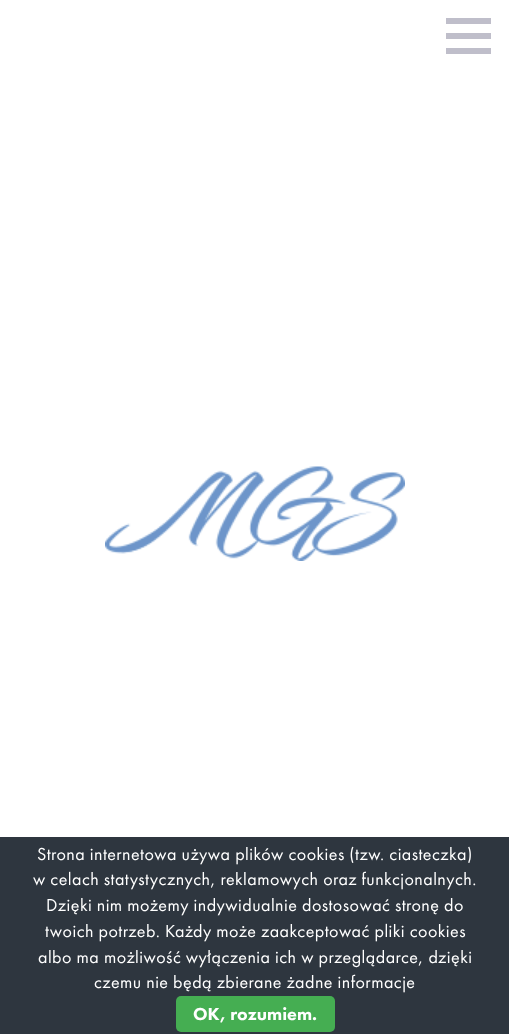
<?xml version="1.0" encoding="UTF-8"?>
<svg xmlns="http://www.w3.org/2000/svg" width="509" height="1034">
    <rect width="100%" height="100%" fill="#FFFFFF"/>
    <rect x="446" y="33" width="45" height="6" fill="#BFBECA"/>
    <rect x="446" y="18" width="45" height="6" fill="#BFBECA"/>
    <rect x="446" y="48" width="45" height="6" fill="#BFBECA"/>
    <image x="105" y="466" width="300" height="95" href="img_01.png"/>
    <rect x="0" y="837" width="509" height="197" fill="#2E363F"/>
    <text x="37" y="860" font-family="Futura PT" font-size="18" letter-spacing="0.45" fill="#FFFFFF">Strona internetowa używa plików cookies (tzw. ciasteczka)</text>
    <text x="33" y="885" font-family="Futura PT" font-size="18" letter-spacing="0.45" fill="#FFFFFF">w celach statystycznych, reklamowych oraz funkcjonalnych.</text>
    <text x="46" y="911" font-family="Futura PT" font-size="18" letter-spacing="0.45" fill="#FFFFFF">Dzięki nim możemy indywidualnie dostosować stronę do</text>
    <text x="45" y="937" font-family="Futura PT" font-size="18" letter-spacing="0.45" fill="#FFFFFF">twoich potrzeb. Każdy może zaakceptować pliki cookies</text>
    <text x="38" y="963" font-family="Futura PT" font-size="18" letter-spacing="0.45" fill="#FFFFFF">albo ma możliwość wyłączenia ich w przeglądarce, dzięki</text>
    <text x="94" y="988" font-family="Futura PT" font-size="18" letter-spacing="0.45" fill="#FFFFFF">czemu nie będą zbierane żadne informacje</text>
    <rect x="176" y="996" width="159" height="36" rx="5" fill="#45AE52"/>
    <text x="193" y="1020" font-family="Futura PT" font-size="18" font-weight="900" fill="#FFFFFF">OK, rozumiem.</text>
</svg>
